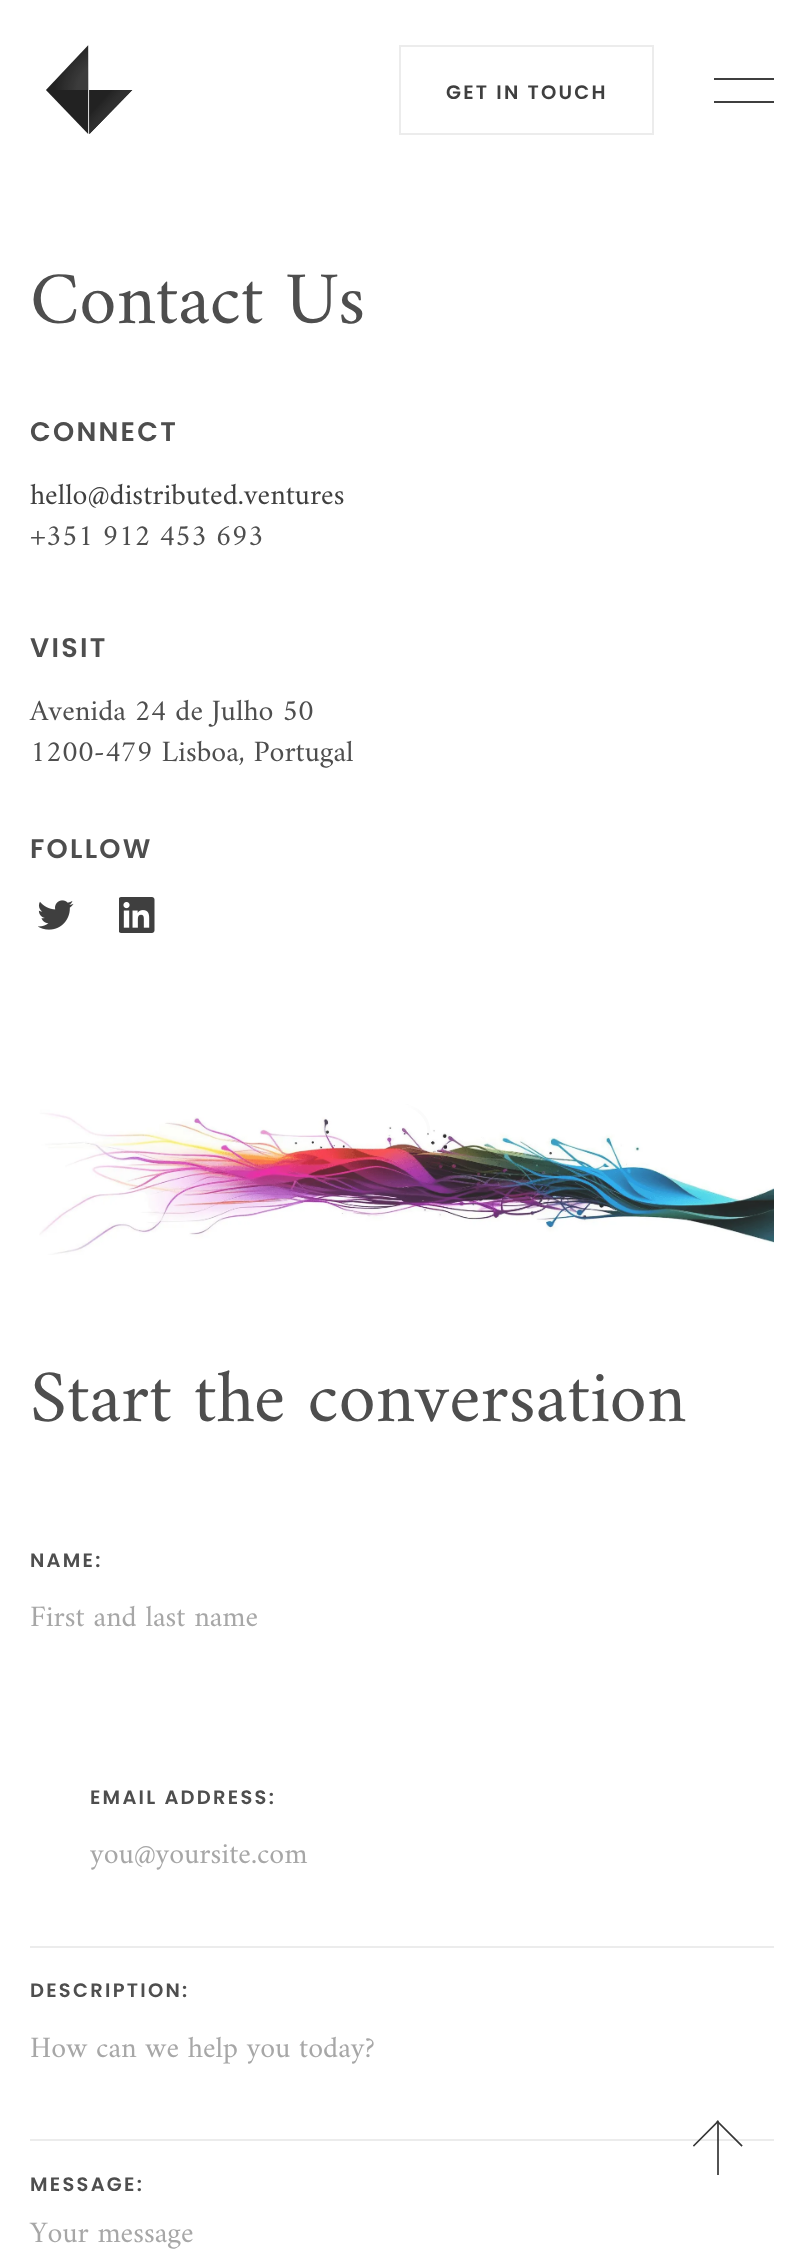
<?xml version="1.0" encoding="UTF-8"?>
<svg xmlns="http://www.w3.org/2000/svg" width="804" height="2265">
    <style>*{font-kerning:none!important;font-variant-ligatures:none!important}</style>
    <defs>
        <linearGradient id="g1" gradientUnits="userSpaceOnUse" x1="404" y1="1106" x2="420" y2="1112"><stop offset="0" stop-color="#FFFFFF"/><stop offset="0.63" stop-color="#EAEAEA"/><stop offset="1" stop-color="#DEDEDE"/></linearGradient>
    </defs>
    <rect width="100%" height="100%" fill="#FFFFFF"/>
    <rect x="717" y="2123" width="2" height="52" fill="#535353"/>
    <image x="46" y="45" width="87" height="89" href="img_01.png"/>
    <rect x="400" y="46" width="253" height="88" fill="none" stroke="#ECECEC" stroke-width="2"/>
    <text x="446" y="99" font-family="Poppins" font-size="19.5" font-weight="600" letter-spacing="2.25" fill="#3F3F3F">GET IN TOUCH</text>
    <rect x="714" y="78" width="60" height="2" fill="#3F3F3F"/>
    <rect x="714" y="101" width="60" height="2" fill="#3F3F3F"/>
    <rect x="30" y="2139" width="744" height="2" fill="#ECECEC"/>
    <rect x="717" y="2139" width="2" height="2" fill="#505050"/>
    <path d="M 718 2121.5 L 694 2145.5 M 717.5 2121.5 L 741.5 2145.5" fill="none" stroke="#353535" stroke-width="1.7" stroke-linecap="square"/>
    <text x="30" y="323" font-family="Amiri" font-size="75" fill="#4E4E4E">Contact Us</text>
    <text x="30" y="441" font-family="Poppins" font-size="27" font-weight="600" letter-spacing="2.25" fill="#4E4E4E">CONNECT</text>
    <text x="30" y="504" font-family="Amiri" font-size="30" fill="#3F3F3F">hello@distributed.ventures</text>
    <text x="30" y="545" font-family="Amiri" font-size="30" fill="#4E4E4E">+351 912 453 693</text>
    <text x="30" y="657" font-family="Poppins" font-size="27" font-weight="600" letter-spacing="2.25" fill="#4E4E4E">VISIT</text>
    <text font-family="Amiri" font-size="30" fill="#4E4E4E">
        <tspan x="30" y="720">Avenida 24 de Julho 50</tspan>
        <tspan x="30" y="761">1200-479 Lisboa, Portugal</tspan>
    </text>
    <text x="30" y="858" font-family="Poppins" font-size="27" font-weight="600" letter-spacing="2.25" fill="#4E4E4E">FOLLOW</text>
    <image x="38" y="900" width="36" height="30" href="img_02.png"/>
    <image x="119" y="897" width="36" height="36" href="img_03.png"/>
    <path d="M 429 1132.5 C 429 1117.5 417 1105.5 402 1105.5" fill="none" stroke="url(#g1)" stroke-width="3"/>
    <image x="39" y="1105" width="735" height="150" href="img_04.png"/>
    <text x="30" y="1421" font-family="Amiri" font-size="75" fill="#4E4E4E">Start the conversation</text>
    <text x="30" y="1567" font-family="Poppins" font-size="19.5" font-weight="600" letter-spacing="2.25" fill="#4E4E4E">NAME:</text>
    <text x="30" y="1626" font-family="Amiri" font-size="30" fill="#A7A7A7">First and last name</text>
    <text x="90" y="1804" font-family="Poppins" font-size="19.5" font-weight="600" letter-spacing="2.25" fill="#4E4E4E">EMAIL ADDRESS:</text>
    <text x="90" y="1863" font-family="Amiri" font-size="30" fill="#A7A7A7">you@yoursite.com</text>
    <rect x="30" y="1946" width="744" height="2" fill="#ECECEC"/>
    <text x="30" y="1997" font-family="Poppins" font-size="19.5" font-weight="600" letter-spacing="2.25" fill="#4E4E4E">DESCRIPTION:</text>
    <text x="30" y="2057" font-family="Amiri" font-size="30" fill="#A7A7A7">How can we help you today?</text>
    <text x="30" y="2191" font-family="Poppins" font-size="19.5" font-weight="600" letter-spacing="2.25" fill="#4E4E4E">MESSAGE:</text>
    <text x="30" y="2242" font-family="Amiri" font-size="30" fill="#A7A7A7">Your message</text>
</svg>
